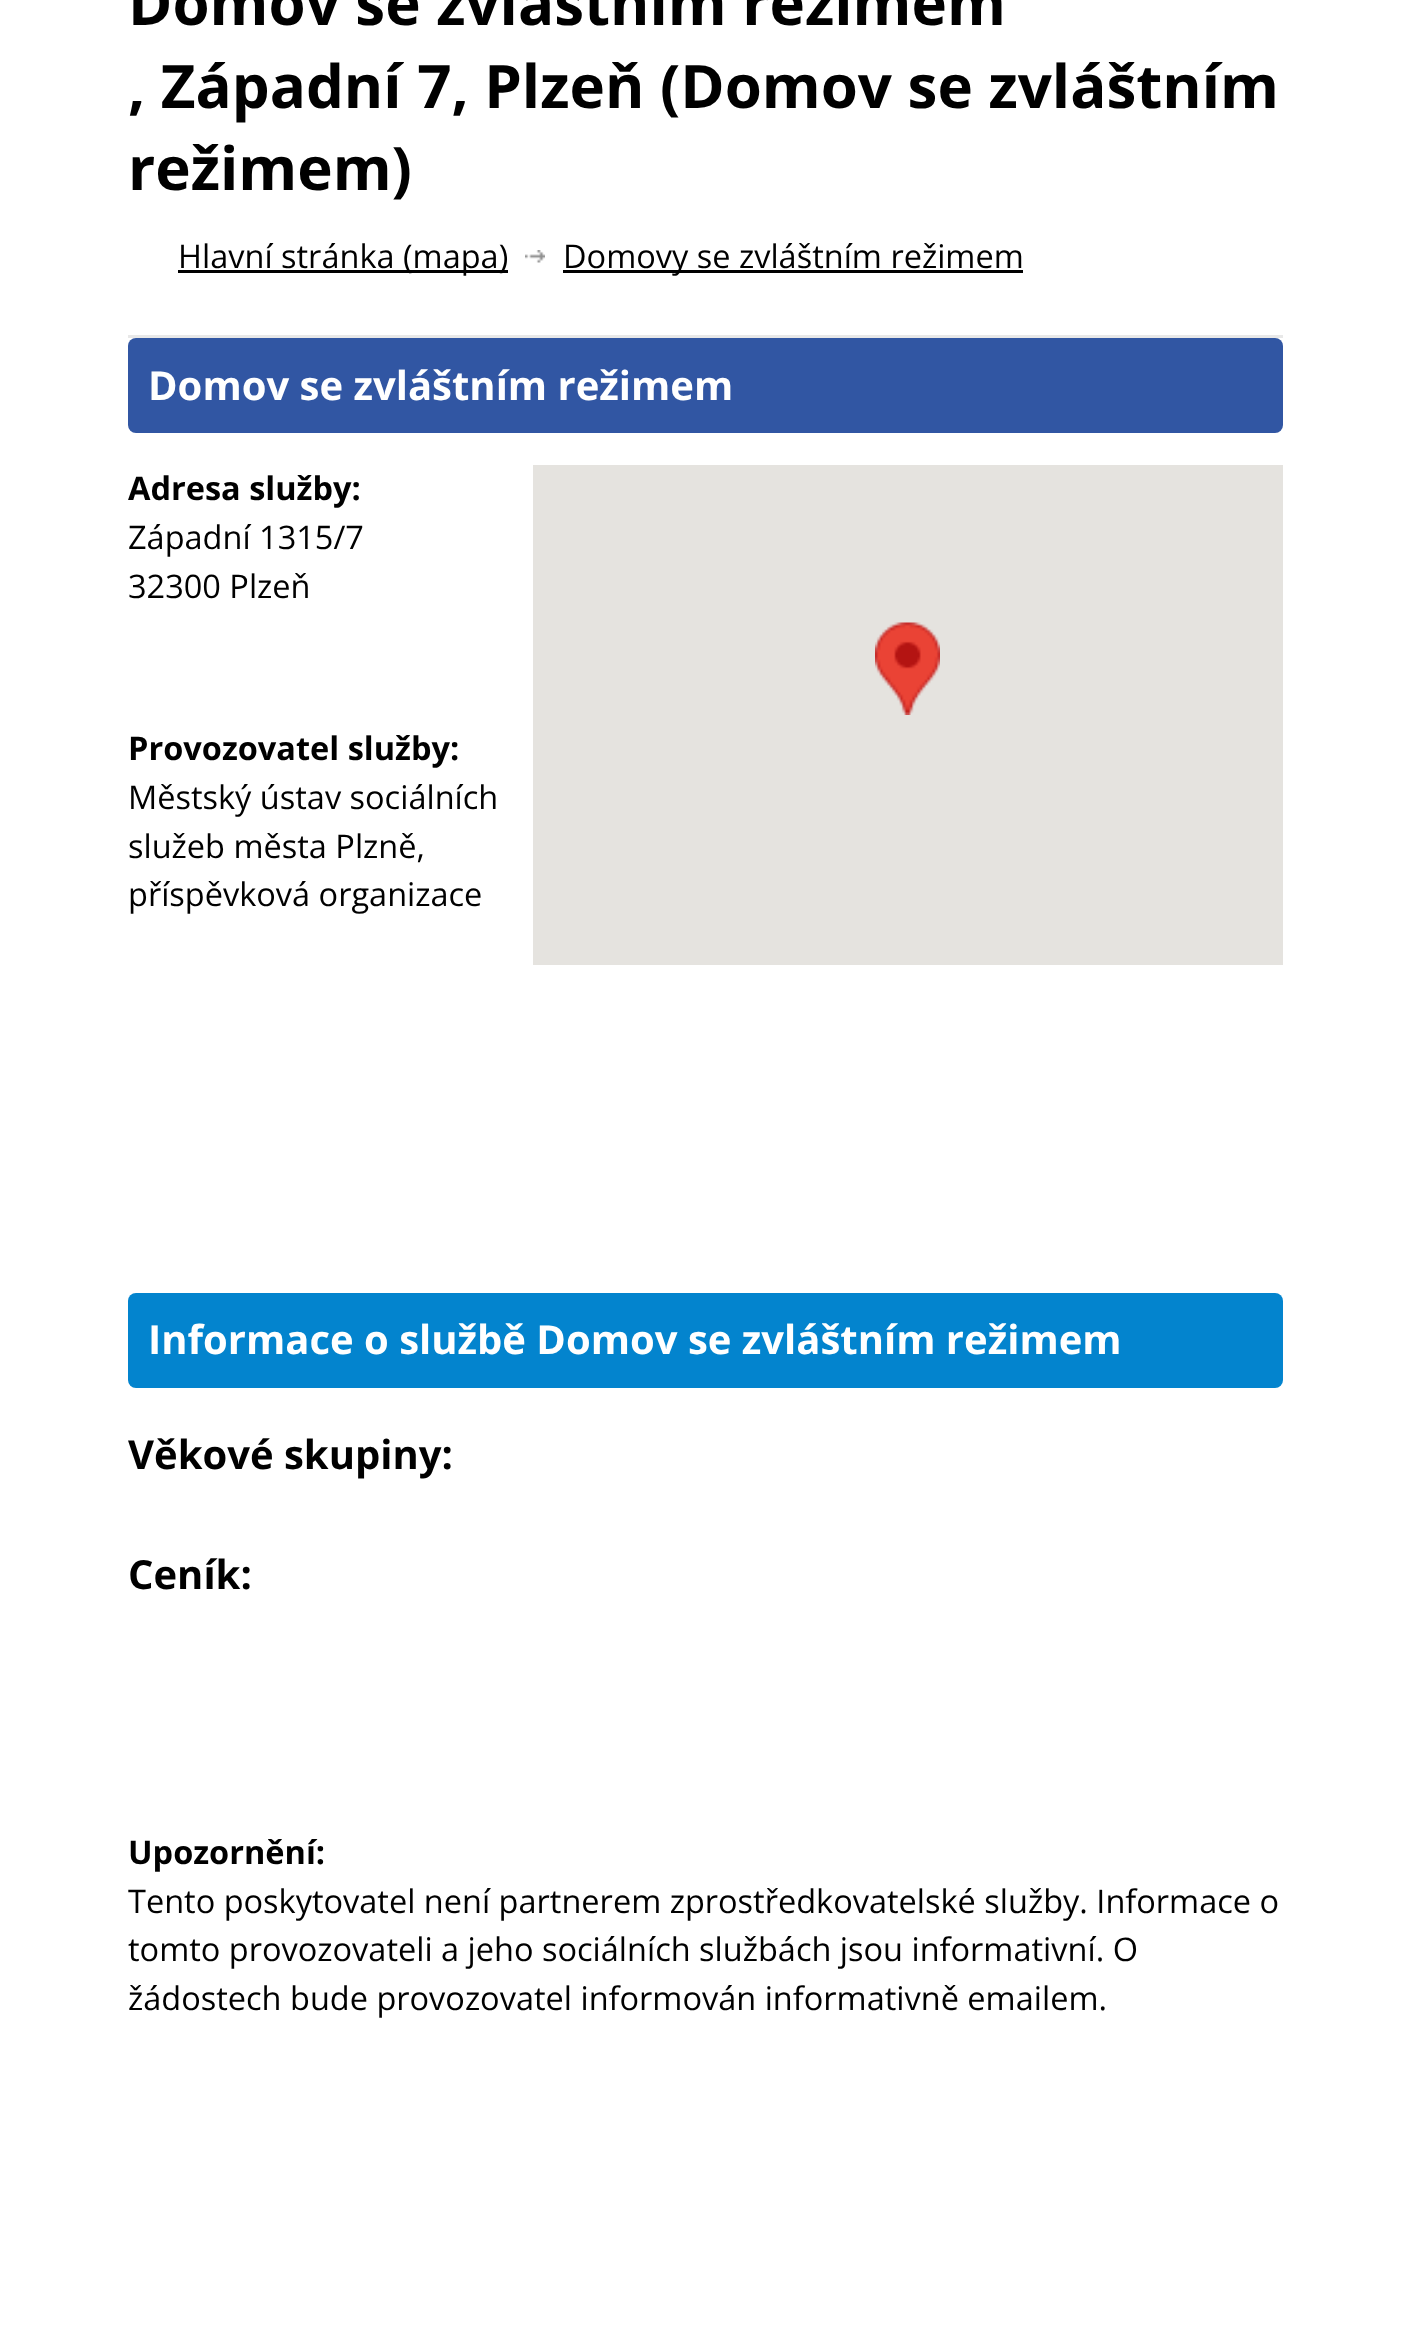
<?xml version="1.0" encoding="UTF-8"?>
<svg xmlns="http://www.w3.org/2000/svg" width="1409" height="2329">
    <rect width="100%" height="100%" fill="#FFFFFF"/>
    <rect x="128" y="335" width="1155" height="3" fill="#E8E8E8"/>
    <text font-family="Open Sans" font-size="60" font-weight="700" fill="#000000">
        <tspan x="128" y="25">Domov se zvláštním režimem</tspan>
        <tspan x="128" y="108">, Západní 7, Plzeň (Domov se zvláštním</tspan>
        <tspan x="128" y="190">režimem)</tspan>
    </text>
    <rect x="178" y="270" width="330" height="3" fill="#000000"/>
    <text x="178" y="268" font-family="Open Sans" font-size="32.5" fill="#000000">Hlavní stránka (mapa)</text>
    <image x="525" y="250" width="20" height="13" href="img_01.png"/>
    <rect x="563" y="270" width="460" height="3" fill="#000000"/>
    <text x="563" y="268" font-family="Open Sans" font-size="32.5" fill="#000000">Domovy se zvláštním režimem</text>
    <rect x="128" y="338" width="1155" height="95" rx="8" fill="#3156A3"/>
    <text x="148" y="400" font-family="Open Sans" font-size="40" font-weight="700" fill="#FFFFFF">Domov se zvláštním režimem</text>
    <text x="128" y="500" font-family="Open Sans" font-size="32.5" font-weight="700" fill="#000000">Adresa služby:</text>
    <text font-family="Open Sans" font-size="32.5" fill="#000000">
        <tspan x="128" y="549">Západní 1315/7</tspan>
        <tspan x="128" y="598">32300 Plzeň</tspan>
    </text>
    <rect x="533" y="465" width="750" height="500" fill="#E5E3DF"/>
    <image x="875" y="622" width="65" height="93" href="img_02.png"/>
    <text x="128" y="760" font-family="Open Sans" font-size="32.5" font-weight="700" fill="#000000">Provozovatel služby:</text>
    <text font-family="Open Sans" font-size="32.5" fill="#000000">
        <tspan x="128" y="809">Městský ústav sociálních</tspan>
        <tspan x="128" y="858">služeb města Plzně,</tspan>
        <tspan x="128" y="906">příspěvková organizace</tspan>
    </text>
    <rect x="128" y="1293" width="1155" height="95" rx="8" fill="#0384CE"/>
    <text x="148" y="1354" font-family="Open Sans" font-size="40" font-weight="700" fill="#FFFFFF">Informace o službě Domov se zvláštním režimem</text>
    <text x="128" y="1469" font-family="Open Sans" font-size="40" font-weight="700" fill="#000000">Věkové skupiny:</text>
    <text x="128" y="1589" font-family="Open Sans" font-size="40" font-weight="700" fill="#000000">Ceník:</text>
    <text x="128" y="1864" font-family="Open Sans" font-size="32.5" font-weight="700" fill="#000000">Upozornění:</text>
    <text font-family="Open Sans" font-size="32.5" fill="#000000">
        <tspan x="128" y="1913">Tento poskytovatel není partnerem zprostředkovatelské služby. Informace o</tspan>
        <tspan x="128" y="1961">tomto provozovateli a jeho sociálních službách jsou informativní. O</tspan>
        <tspan x="128" y="2010">žádostech bude provozovatel informován informativně emailem.</tspan>
    </text>
</svg>
